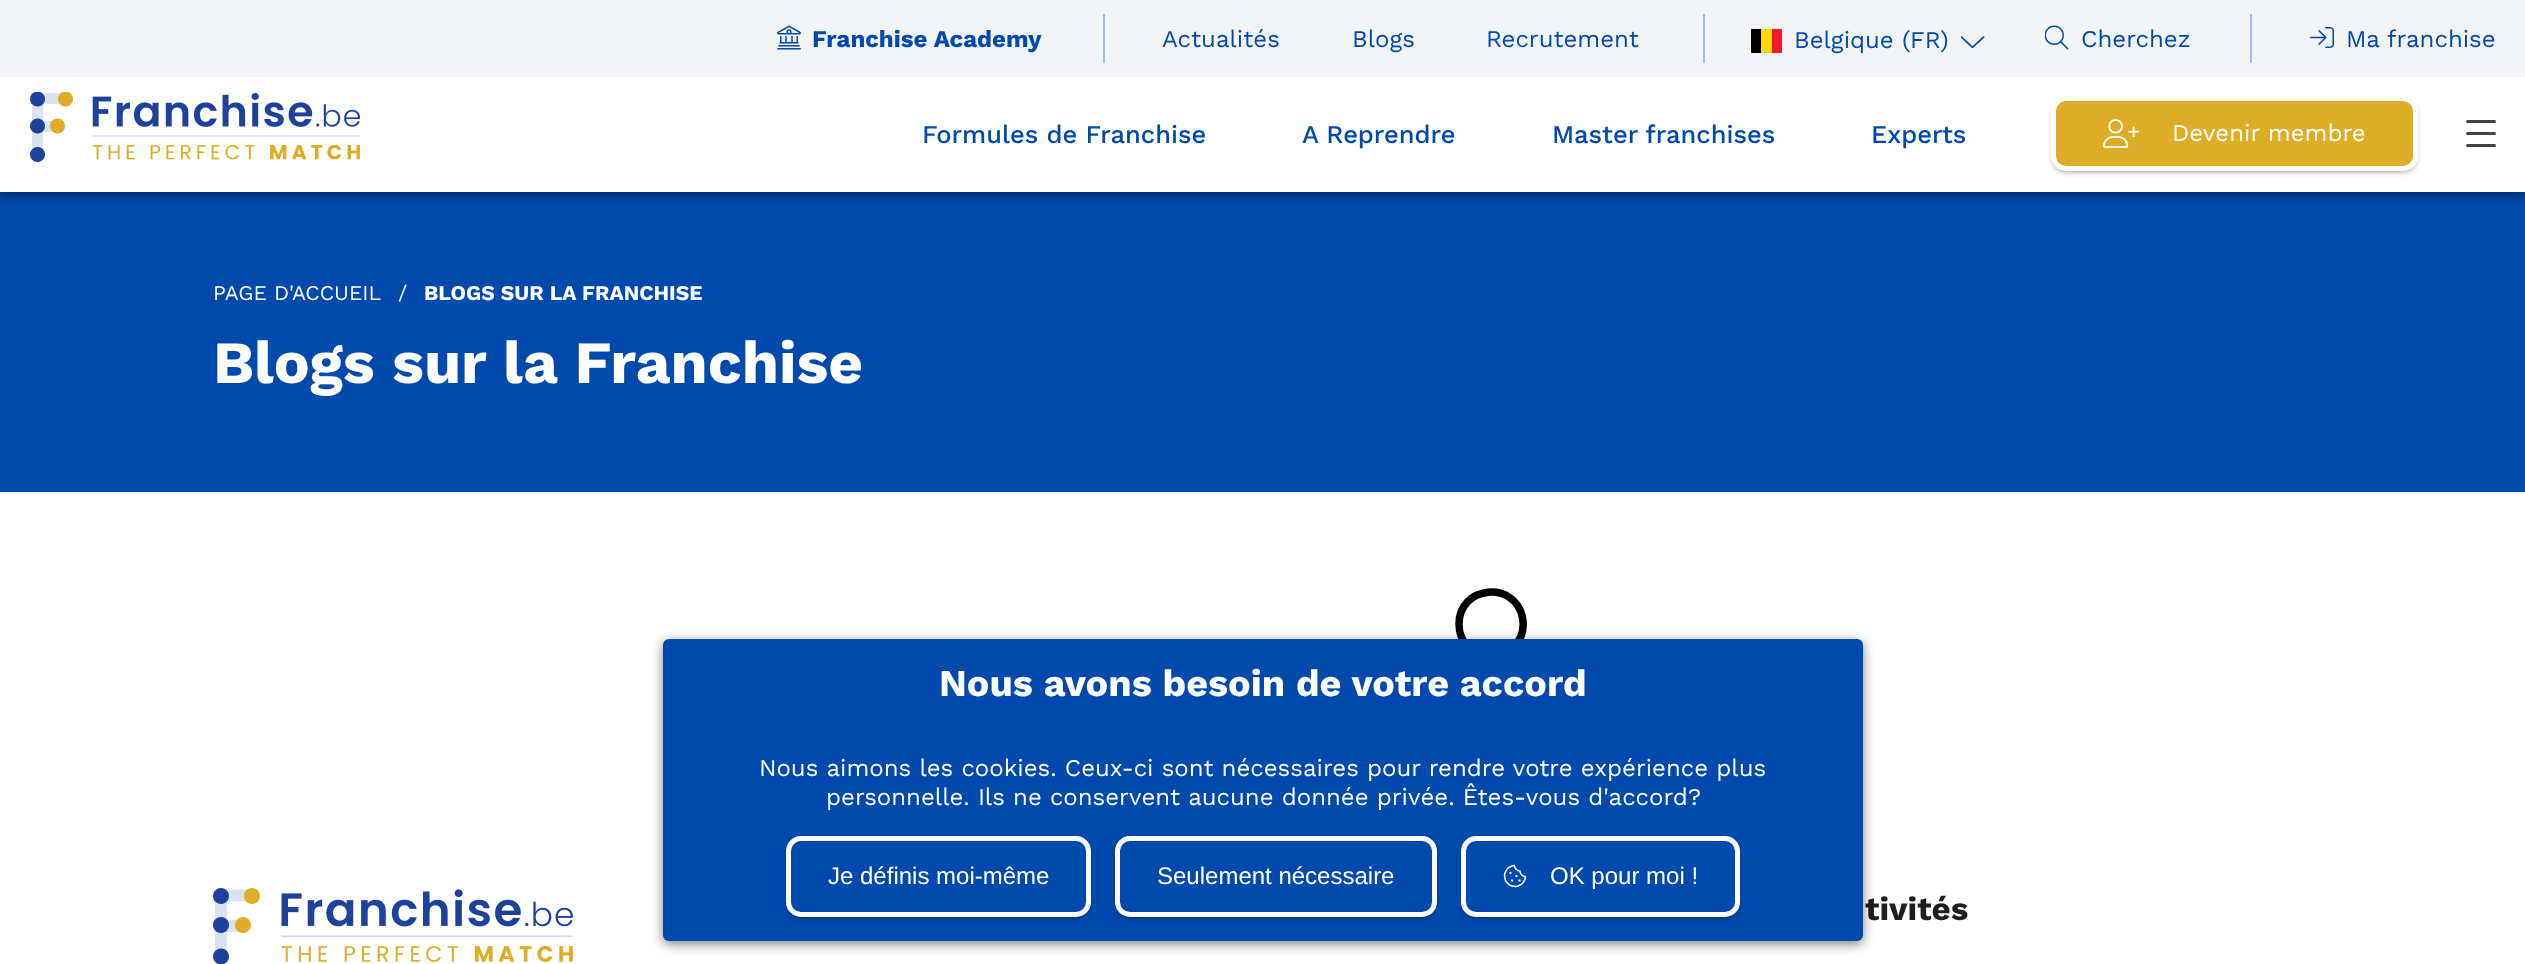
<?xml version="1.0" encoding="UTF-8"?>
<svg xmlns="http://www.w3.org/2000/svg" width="2525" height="964">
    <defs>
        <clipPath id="clip1"><rect x="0" y="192" width="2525" height="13"/></clipPath>
        <filter id="blur1" x="-50%" y="-200%" width="200%" height="500%"><feGaussianBlur stdDeviation="6"/></filter>
        <filter id="blur2" x="-50%" y="-200%" width="200%" height="500%"><feGaussianBlur stdDeviation="3"/></filter>
    </defs>
    <rect width="100%" height="100%" fill="#FFFFFF"/>
    <rect x="0" y="192" width="2525" height="300" fill="#0049AD"/>
    <g clip-path="url(#clip1)">
        <rect x="0" y="2" width="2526" height="192" fill="#000000" fill-opacity="0.56" filter="url(#blur1)"/>
    </g>
    <rect x="0" y="0" width="2525" height="77" fill="#F2F4F6"/>
    <image x="777" y="25" width="24" height="25" href="img_01.png"/>
    <text x="812" y="47" font-family="Work Sans" font-size="24" font-weight="700" fill="#0049AD">Franchise Academy</text>
    <rect x="1103" y="14" width="2" height="49" fill="#A5BDDF"/>
    <text x="1162" y="47" font-family="Work Sans" font-size="24" fill="#0049AD">Actualités</text>
    <text x="1352" y="47" font-family="Work Sans" font-size="24" fill="#0049AD">Blogs</text>
    <text x="1486" y="47" font-family="Work Sans" font-size="24" fill="#0049AD">Recrutement</text>
    <rect x="1703" y="14" width="2" height="49" fill="#A5BDDF"/>
    <rect x="1751" y="29" width="10" height="24" fill="#000001"/>
    <rect x="1761" y="29" width="11" height="24" fill="#FFD90C"/>
    <rect x="1772" y="29" width="10" height="24" fill="#F31830"/>
    <text x="1794" y="48" font-family="Work Sans" font-size="24" fill="#0049AD">Belgique (FR)</text>
    <image x="1961" y="36" width="24" height="13" href="img_02.png"/>
    <image x="2045" y="25" width="24" height="25" href="img_03.png"/>
    <text x="2081" y="47" font-family="Work Sans" font-size="24" fill="#0049AD">Cherchez</text>
    <rect x="2250" y="14" width="2" height="49" fill="#A5BDDF"/>
    <image x="2310" y="27" width="24" height="21" href="img_04.png"/>
    <text x="2346" y="47" font-family="Work Sans" font-size="24" fill="#0049AD">Ma franchise</text>
    <image x="30" y="92" width="330" height="70" href="img_05.png"/>
    <text x="922" y="143" font-family="Work Sans" font-size="25.5" font-weight="500" fill="#0049AD">Formules de Franchise</text>
    <text x="1302" y="143" font-family="Work Sans" font-size="25.5" font-weight="500" fill="#0049AD">A Reprendre</text>
    <text x="1552" y="143" font-family="Work Sans" font-size="25.5" font-weight="500" fill="#0049AD">Master franchises</text>
    <text x="1871" y="143" font-family="Work Sans" font-size="25.5" font-weight="500" fill="#0049AD">Experts</text>
    <rect x="2054" y="102" width="361" height="69" rx="12" fill="#000000" fill-opacity="0.5" filter="url(#blur2)"/>
    <rect x="2053.5" y="98.5" width="362" height="70" rx="12.5" fill="#DDAD27" stroke="#FFFFFF" stroke-width="5"/>
    <image x="2103" y="119" width="36" height="29" href="img_06.png"/>
    <text x="2172" y="141" font-family="Work Sans" font-size="24" fill="#FFFFFF">Devenir membre</text>
    <rect x="2466" y="120" width="30" height="3" rx="1.5" fill="#444444"/>
    <rect x="2466" y="132" width="30" height="3" rx="1.5" fill="#444444"/>
    <rect x="2466" y="144" width="30" height="3" rx="1.5" fill="#444444"/>
    <text x="213" y="300" font-family="Work Sans" font-size="21" fill="#FFFFFF">PAGE D'ACCUEIL</text>
    <text x="398" y="300" font-family="Work Sans" font-size="21" fill="#FFFFFF">/</text>
    <text x="424" y="300" font-family="Work Sans" font-size="21" font-weight="700" fill="#FFFFFF">BLOGS SUR LA FRANCHISE</text>
    <text x="213" y="383" font-family="Work Sans" font-size="60" font-weight="700" fill="#FFFFFF">Blogs sur la Franchise</text>
    <path d="M 1468 647 C 1462 641 1459 632.5 1459 624 C 1459 585.5 1515 580 1522.5 617.5 C 1524.5 628 1521.5 639 1514 647" fill="none" stroke="#000000" stroke-width="7.5"/>
    <image x="213" y="888" width="360" height="76" href="img_07.png"/>
    <text x="1865" y="920" font-family="Work Sans" font-size="33" font-weight="700" fill="#1E1E1E">tivités</text>
    <rect x="663" y="642" width="1200" height="302" rx="6" fill="#000000" fill-opacity="0.5" filter="url(#blur1)"/>
    <rect x="663" y="639" width="1200" height="302" rx="6" fill="#0049AD"/>
    <text x="939" y="696" font-family="Work Sans" font-size="37.75" font-weight="700" fill="#FFFFFF">Nous avons besoin de votre accord</text>
    <text x="759" y="776" font-family="Work Sans" font-size="24" fill="#FFFFFF">Nous aimons les cookies. Ceux-ci sont nécessaires pour rendre votre expérience plus</text>
    <text x="826" y="805" font-family="Work Sans" font-size="24" fill="#FFFFFF">personnelle. Ils ne conservent aucune donnée privée. Êtes-vous d'accord?</text>
    <rect x="789" y="842" width="299" height="75" rx="12" fill="#000000" fill-opacity="0.5" filter="url(#blur2)"/>
    <rect x="788.5" y="838.5" width="300" height="76" rx="12.5" fill="#0049AD" stroke="#FFFFFF" stroke-width="5"/>
    <text x="828" y="884" font-family="Liberation Sans" font-size="24" fill="#FFFFFF">Je définis moi-même</text>
    <rect x="1118" y="842" width="316" height="75" rx="12" fill="#000000" fill-opacity="0.5" filter="url(#blur2)"/>
    <rect x="1117.5" y="838.5" width="317" height="76" rx="12.5" fill="#0049AD" stroke="#FFFFFF" stroke-width="5"/>
    <text x="1157" y="884" font-family="Liberation Sans" font-size="24" fill="#FFFFFF">Seulement nécessaire</text>
    <rect x="1464" y="842" width="273" height="75" rx="12" fill="#000000" fill-opacity="0.5" filter="url(#blur2)"/>
    <rect x="1463.5" y="838.5" width="274" height="76" rx="12.5" fill="#0049AD" stroke="#FFFFFF" stroke-width="5"/>
    <image x="1503" y="864" width="24" height="24" href="img_08.png"/>
    <text x="1550" y="884" font-family="Liberation Sans" font-size="24" fill="#FFFFFF">OK pour moi !</text>
</svg>
